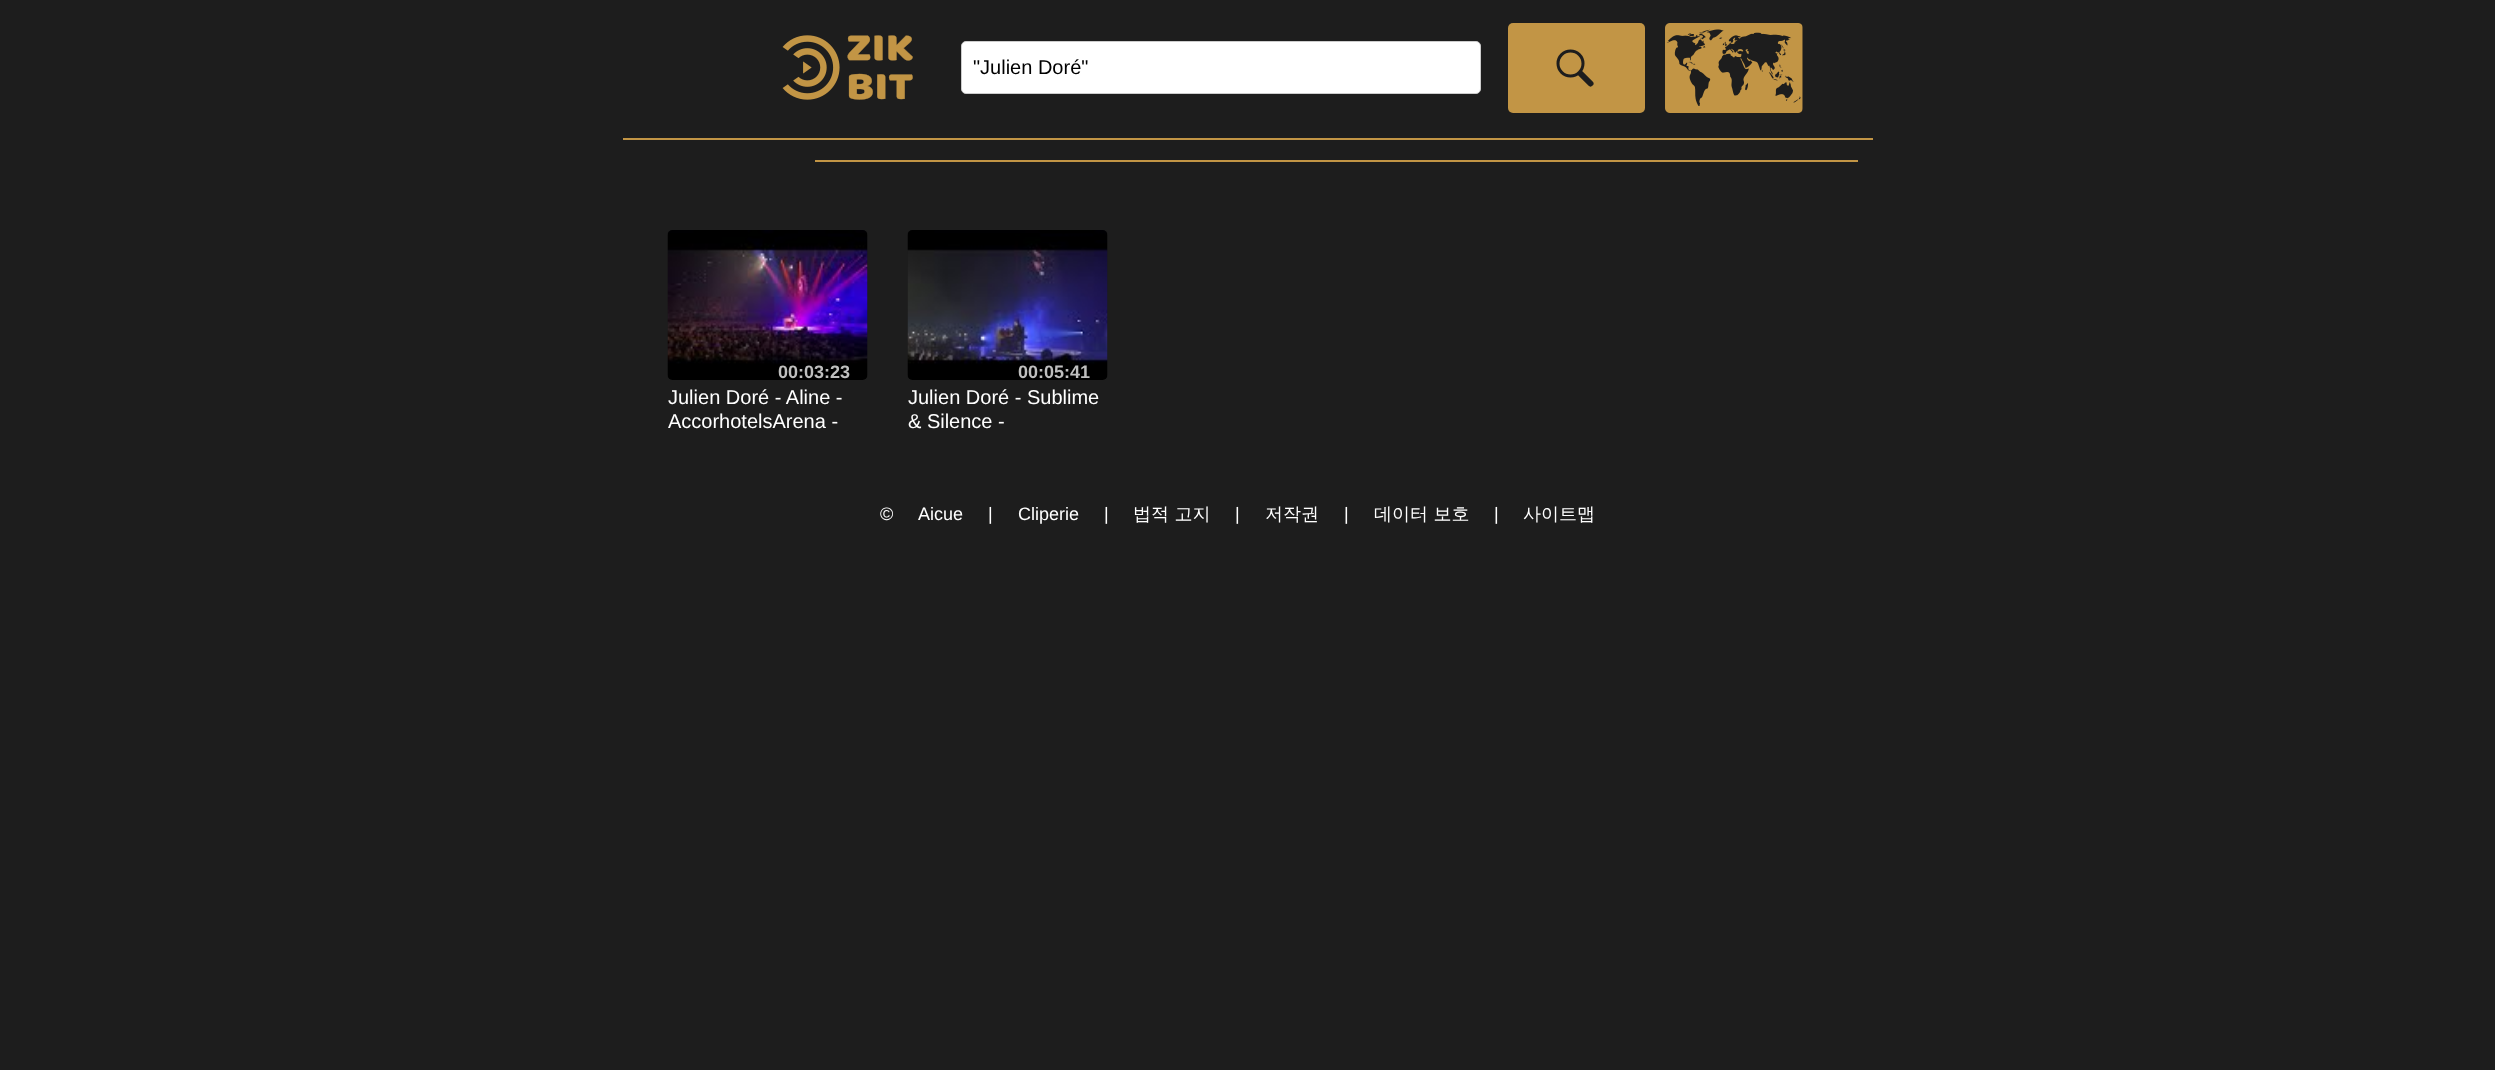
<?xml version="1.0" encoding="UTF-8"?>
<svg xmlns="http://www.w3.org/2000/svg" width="2495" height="1070">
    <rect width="100%" height="100%" fill="#1D1D1D"/>
    <image x="782" y="35" width="131" height="65" href="img_01.png"/>
    <rect x="961.5" y="41.5" width="519" height="52" rx="4.5" fill="#FFFFFF" stroke="#CCCCCC"/>
    <text x="973" y="74" font-family="Liberation Sans" font-size="20" fill="#000000">"Julien Doré"</text>
    <rect x="1508" y="23" width="137" height="90" rx="5" fill="#C29545"/>
    <circle cx="1570.5" cy="63.5" r="12.5" fill="none" stroke="#1D1D1D" stroke-width="3"/>
    <path d="M 1581 74 L 1590.5 83.5" fill="none" stroke="#1D1D1D" stroke-width="6" stroke-linecap="round"/>
    <image x="1665" y="23" width="138" height="90" href="img_02.png"/>
    <rect x="623" y="138" width="1250" height="2" fill="#C29545"/>
    <rect x="815" y="160" width="1043" height="2" fill="#C29545"/>
    <image x="667" y="230" width="201" height="150" href="img_03.png"/>
    <text x="778" y="378" font-family="Liberation Sans" font-size="18" font-weight="700" fill="#BFBFBF">00:03:23</text>
    <text font-family="Liberation Sans" font-size="20" fill="#FFFFFF">
        <tspan x="668" y="404">Julien Doré - Aline -</tspan>
        <tspan x="668" y="428">AccorhotelsArena -</tspan>
    </text>
    <image x="907" y="230" width="201" height="150" href="img_04.png"/>
    <text x="1018" y="378" font-family="Liberation Sans" font-size="18" font-weight="700" fill="#BFBFBF">00:05:41</text>
    <text font-family="Liberation Sans" font-size="20" fill="#FFFFFF">
        <tspan x="908" y="404">Julien Doré - Sublime</tspan>
        <tspan x="908" y="428">&amp; Silence -</tspan>
    </text>
    <text x="880" y="520" font-family="Liberation Sans" font-size="18" fill="#FFFFFF">©</text>
    <text x="918" y="520" font-family="Liberation Sans" font-size="18" fill="#FFFFFF">Aicue</text>
    <text x="988" y="520" font-family="Liberation Sans" font-size="18" fill="#FFFFFF">|</text>
    <text x="1018" y="520" font-family="Liberation Sans" font-size="18" fill="#FFFFFF">Cliperie</text>
    <text x="1104" y="520" font-family="Liberation Sans" font-size="18" fill="#FFFFFF">|</text>
    <text x="1133" y="520" font-family="WenQuanYi Zen Hei" font-size="18" font-weight="500" fill="#FFFFFF">법적 고지</text>
    <text x="1235" y="520" font-family="Liberation Sans" font-size="18" fill="#FFFFFF">|</text>
    <text x="1265" y="520" font-family="WenQuanYi Zen Hei" font-size="18" font-weight="500" fill="#FFFFFF">저작권</text>
    <text x="1344" y="520" font-family="Liberation Sans" font-size="18" fill="#FFFFFF">|</text>
    <text x="1374" y="520" font-family="WenQuanYi Zen Hei" font-size="18" font-weight="500" fill="#FFFFFF">데이터 보호</text>
    <text x="1494" y="520" font-family="Liberation Sans" font-size="18" fill="#FFFFFF">|</text>
    <text x="1523" y="520" font-family="WenQuanYi Zen Hei" font-size="18" font-weight="500" fill="#FFFFFF">사이트맵</text>
</svg>
